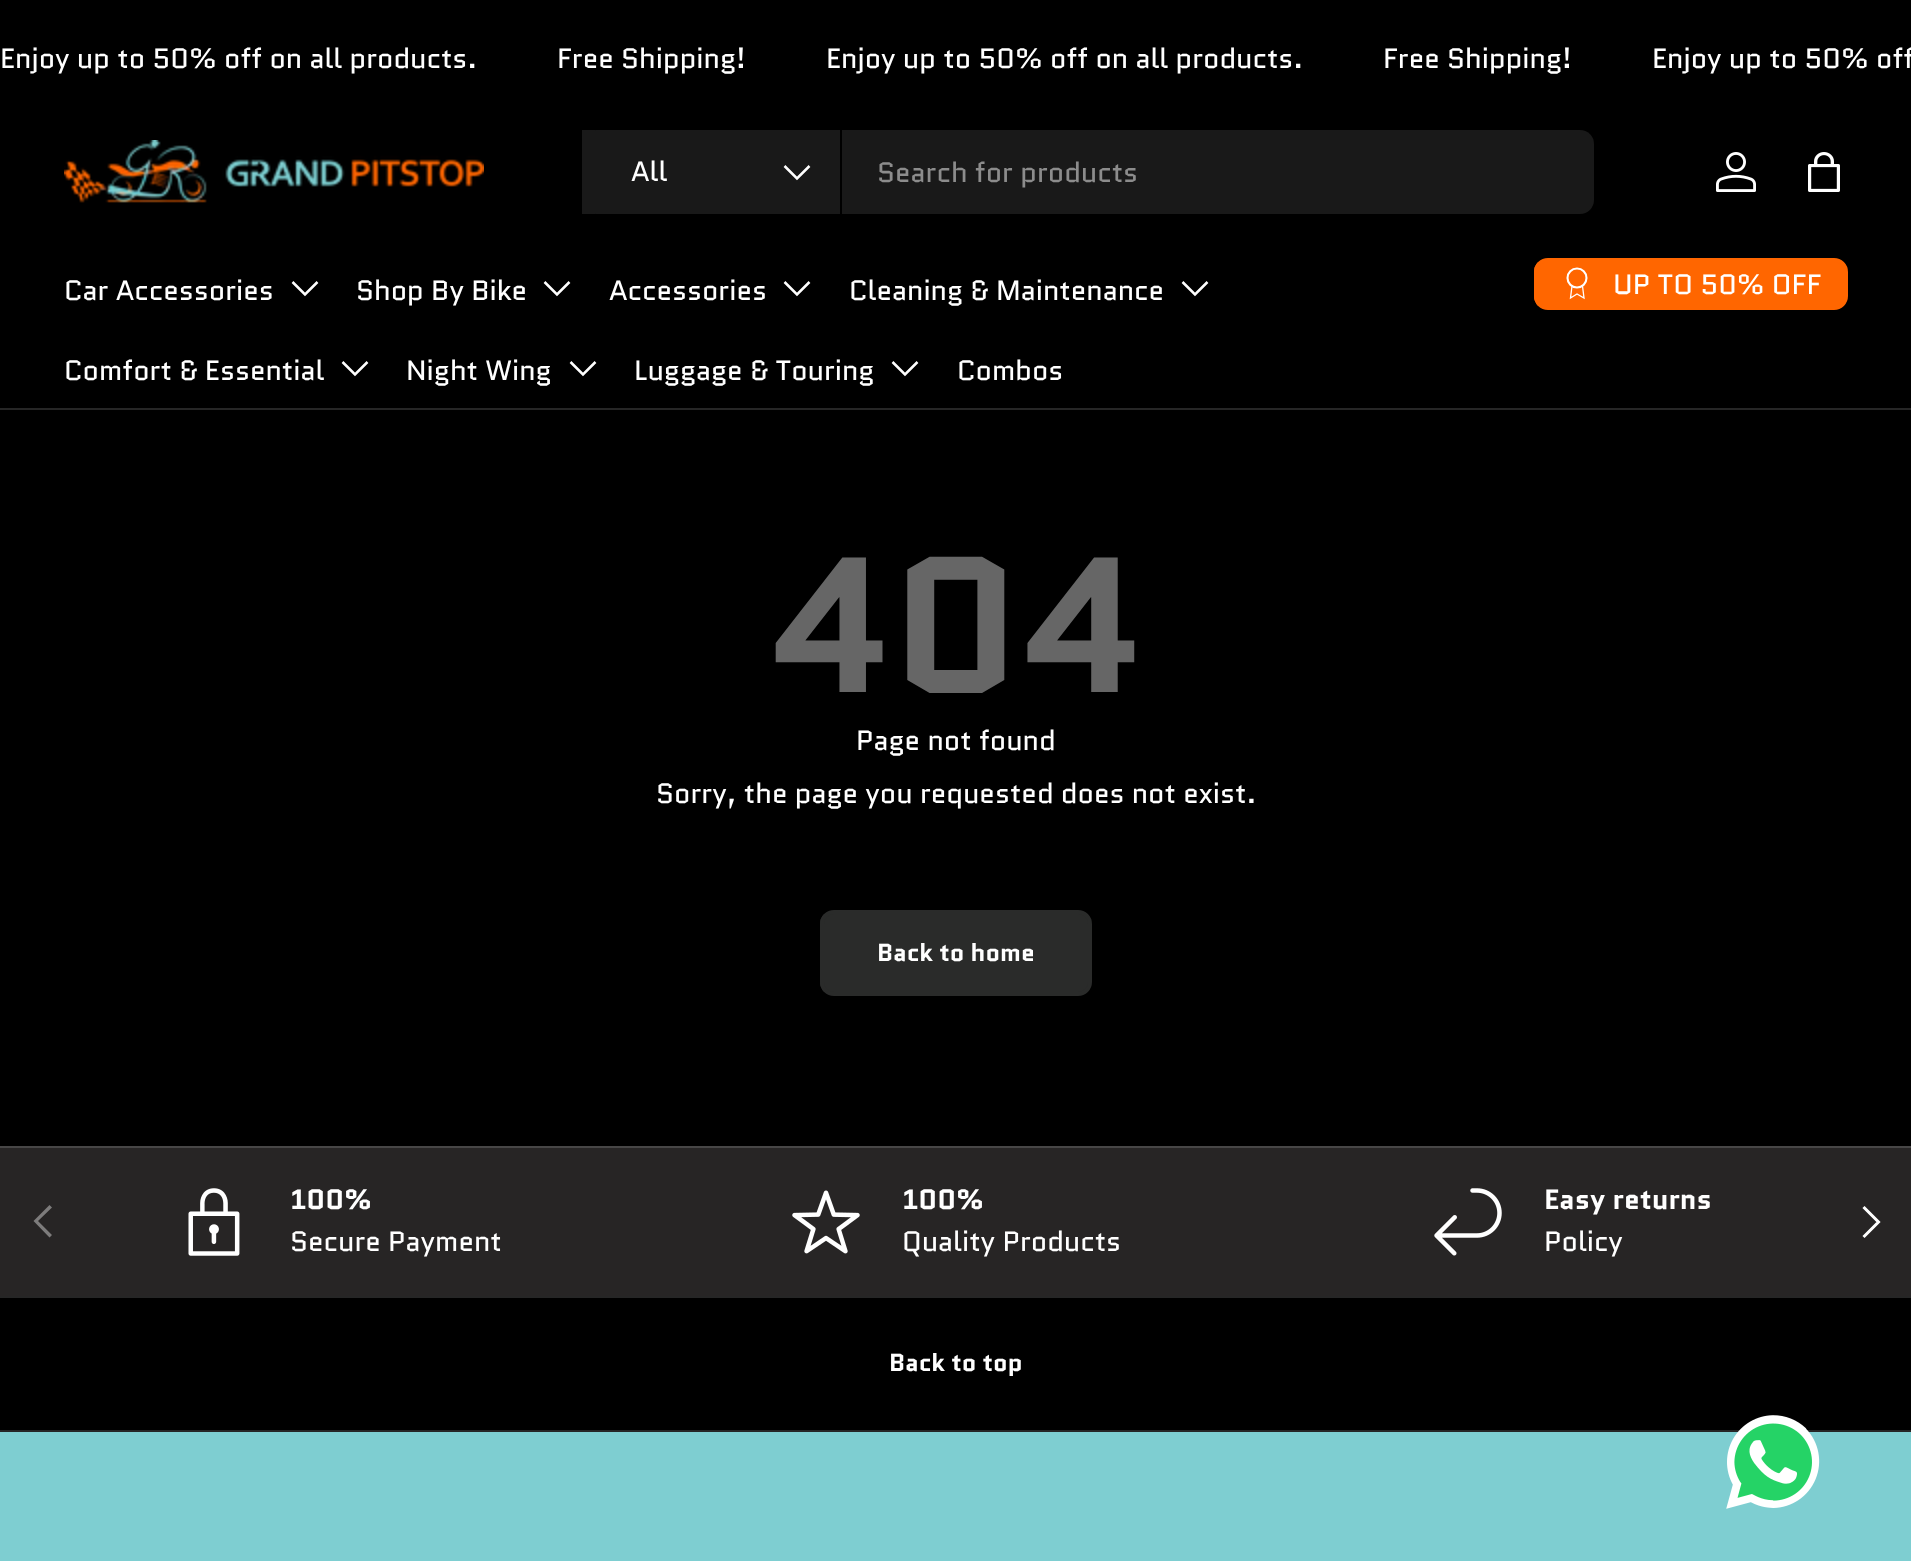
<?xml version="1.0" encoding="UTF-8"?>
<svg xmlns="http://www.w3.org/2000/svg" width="1911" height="1561">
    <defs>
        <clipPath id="clip1"><rect x="1534" y="258" width="314" height="52" rx="14"/></clipPath>
        <linearGradient id="g1" gradientUnits="userSpaceOnUse" x1="948" y1="175" x2="1822" y2="393"><stop offset="0.6" stop-color="#FF8635"/><stop offset="0.6" stop-color="#FF6600"/><stop offset="1" stop-color="#FF6600"/></linearGradient>
        <clipPath id="clip2"><rect x="820" y="910" width="272" height="86" rx="14"/></clipPath>
        <linearGradient id="g2" gradientUnits="userSpaceOnUse" x1="310" y1="858" x2="1074" y2="1048"><stop offset="0.6" stop-color="#525352"/><stop offset="0.6" stop-color="#2A2B2A"/><stop offset="1" stop-color="#2A2B2A"/></linearGradient>
    </defs>
    <rect width="100%" height="100%" fill="#000000"/>
    <text x="0" y="68" font-family="Quantico" font-size="28" fill="#FFFFFF">Enjoy up to 50% off on all products.</text>
    <text x="557" y="68" font-family="Quantico" font-size="28" fill="#FFFFFF">Free Shipping!</text>
    <text x="826" y="68" font-family="Quantico" font-size="28" fill="#FFFFFF">Enjoy up to 50% off on all products.</text>
    <text x="1383" y="68" font-family="Quantico" font-size="28" fill="#FFFFFF">Free Shipping!</text>
    <text x="1652" y="68" font-family="Quantico" font-size="28" fill="#FFFFFF">Enjoy up to 50% off</text>
    <rect x="0" y="408" width="1911" height="2" fill="#262626"/>
    <image x="64" y="140" width="420" height="63" href="img_01.png"/>
    <rect x="582" y="130" width="1012" height="84" rx="14" fill="#191919"/>
    <rect x="582" y="130" width="13" height="84" fill="#191919"/>
    <rect x="840" y="130" width="2" height="84" fill="#000000"/>
    <text x="631" y="181" font-family="Quantico" font-size="28" fill="#FFFFFF">All</text>
    <path d="M 809.5 166 L 797 178.5 L 784.5 166" fill="none" stroke="#FFFFFF" stroke-width="2.5"/>
    <text x="877" y="182" font-family="Quantico" font-size="28" fill="#8C8C8C">Search for products</text>
    <image x="1716" y="152" width="40" height="40" href="img_02.png"/>
    <image x="1808" y="152" width="32" height="40" href="img_03.png"/>
    <text x="64" y="300" font-family="Quantico" font-size="28" fill="#FFFFFF">Car Accessories</text>
    <path d="M 317.5 282 L 305 294.5 L 292.5 282" fill="none" stroke="#FFFFFF" stroke-width="2.5"/>
    <text x="356" y="300" font-family="Quantico" font-size="28" fill="#FFFFFF">Shop By Bike</text>
    <path d="M 569.5 282 L 557 294.5 L 544.5 282" fill="none" stroke="#FFFFFF" stroke-width="2.5"/>
    <text x="609" y="300" font-family="Quantico" font-size="28" fill="#FFFFFF">Accessories</text>
    <path d="M 809.5 282 L 797 294.5 L 784.5 282" fill="none" stroke="#FFFFFF" stroke-width="2.5"/>
    <text x="849" y="300" font-family="Quantico" font-size="28" fill="#FFFFFF">Cleaning &amp; Maintenance</text>
    <path d="M 1207.5 282 L 1195 294.5 L 1182.5 282" fill="none" stroke="#FFFFFF" stroke-width="2.5"/>
    <text x="64" y="380" font-family="Quantico" font-size="28" fill="#FFFFFF">Comfort &amp; Essential</text>
    <path d="M 367.5 362 L 355 374.5 L 342.5 362" fill="none" stroke="#FFFFFF" stroke-width="2.5"/>
    <text x="406" y="380" font-family="Quantico" font-size="28" fill="#FFFFFF">Night Wing</text>
    <path d="M 595.5 362 L 583 374.5 L 570.5 362" fill="none" stroke="#FFFFFF" stroke-width="2.5"/>
    <text x="634" y="380" font-family="Quantico" font-size="28" fill="#FFFFFF">Luggage &amp; Touring</text>
    <path d="M 917.5 362 L 905 374.5 L 892.5 362" fill="none" stroke="#FFFFFF" stroke-width="2.5"/>
    <text x="957" y="380" font-family="Quantico" font-size="28" fill="#FFFFFF">Combos</text>
    <g clip-path="url(#clip1)">
        <rect x="1534" y="262" width="310" height="44" fill="url(#g1)"/>
    </g>
    <rect x="1536" y="260" width="310" height="48" rx="12" fill="none" stroke="#FF6600" stroke-width="4"/>
    <circle cx="1577" cy="278" r="9.5" fill="none" stroke="#FFFFFF" stroke-width="2.1"/>
    <path d="M 1572 286 L 1570.5 298 L 1577 294 L 1584 298 L 1582.5 286" fill="none" stroke="#FFFFFF" stroke-width="1.3"/>
    <text x="1613" y="294" font-family="Quantico" font-size="28" fill="#FFFFFF">UP TO 50% OFF</text>
    <text x="769" y="692" font-family="Quantico" font-size="192" font-weight="700" fill="#666666">404</text>
    <text x="856" y="750" font-family="Quantico" font-size="28" fill="#FFFFFF">Page not found</text>
    <text x="656" y="803" font-family="Quantico" font-size="28" fill="#FFFFFF">Sorry, the page you requested does not exist.</text>
    <g clip-path="url(#clip2)">
        <rect x="820" y="914" width="268" height="78" fill="url(#g2)"/>
    </g>
    <rect x="822" y="912" width="268" height="82" rx="12" fill="none" stroke="#2A2B2A" stroke-width="4"/>
    <text x="877" y="961" font-family="Quantico" font-size="24.5" font-weight="700" fill="#FFFFFF">Back to home</text>
    <rect x="0" y="1148" width="1911" height="148" fill="#272525"/>
    <rect x="0" y="1146" width="1911" height="2" fill="#474646"/>
    <image x="188" y="1188" width="52" height="68" href="img_04.png"/>
    <text x="290" y="1209" font-family="Quantico" font-size="28" font-weight="700" fill="#FFFFFF">100%</text>
    <text x="290" y="1251" font-family="Quantico" font-size="28" fill="#FFFFFF">Secure Payment</text>
    <image x="792" y="1190" width="68" height="64" href="img_05.png"/>
    <text x="902" y="1209" font-family="Quantico" font-size="28" font-weight="700" fill="#FFFFFF">100%</text>
    <text x="902" y="1251" font-family="Quantico" font-size="28" fill="#FFFFFF">Quality Products</text>
    <image x="1434" y="1188" width="68" height="68" href="img_06.png"/>
    <text x="1544" y="1209" font-family="Quantico" font-size="28" font-weight="700" fill="#FFFFFF">Easy returns</text>
    <text x="1544" y="1251" font-family="Quantico" font-size="28" fill="#FFFFFF">Policy</text>
    <path d="M 33.5 1221 L 49.5 1205 L 52 1207.5 L 38 1221 L 52 1235 L 49.5 1237.5 Z" fill="#7D7C7C"/>
    <path d="M 1863.5 1207 L 1878.5 1222 L 1863.5 1237" fill="none" stroke="#FFFFFF" stroke-width="3"/>
    <rect x="0" y="1296" width="1911" height="2" fill="#262626"/>
    <rect x="0" y="1430" width="1911" height="2" fill="#262626"/>
    <text x="889" y="1371" font-family="Quantico" font-size="24.5" font-weight="700" fill="#FFFFFF">Back to top</text>
    <rect x="0" y="1432" width="1911" height="129" fill="#7ECED1"/>
    <image x="1726" y="1415" width="94" height="94" href="img_07.png"/>
</svg>
